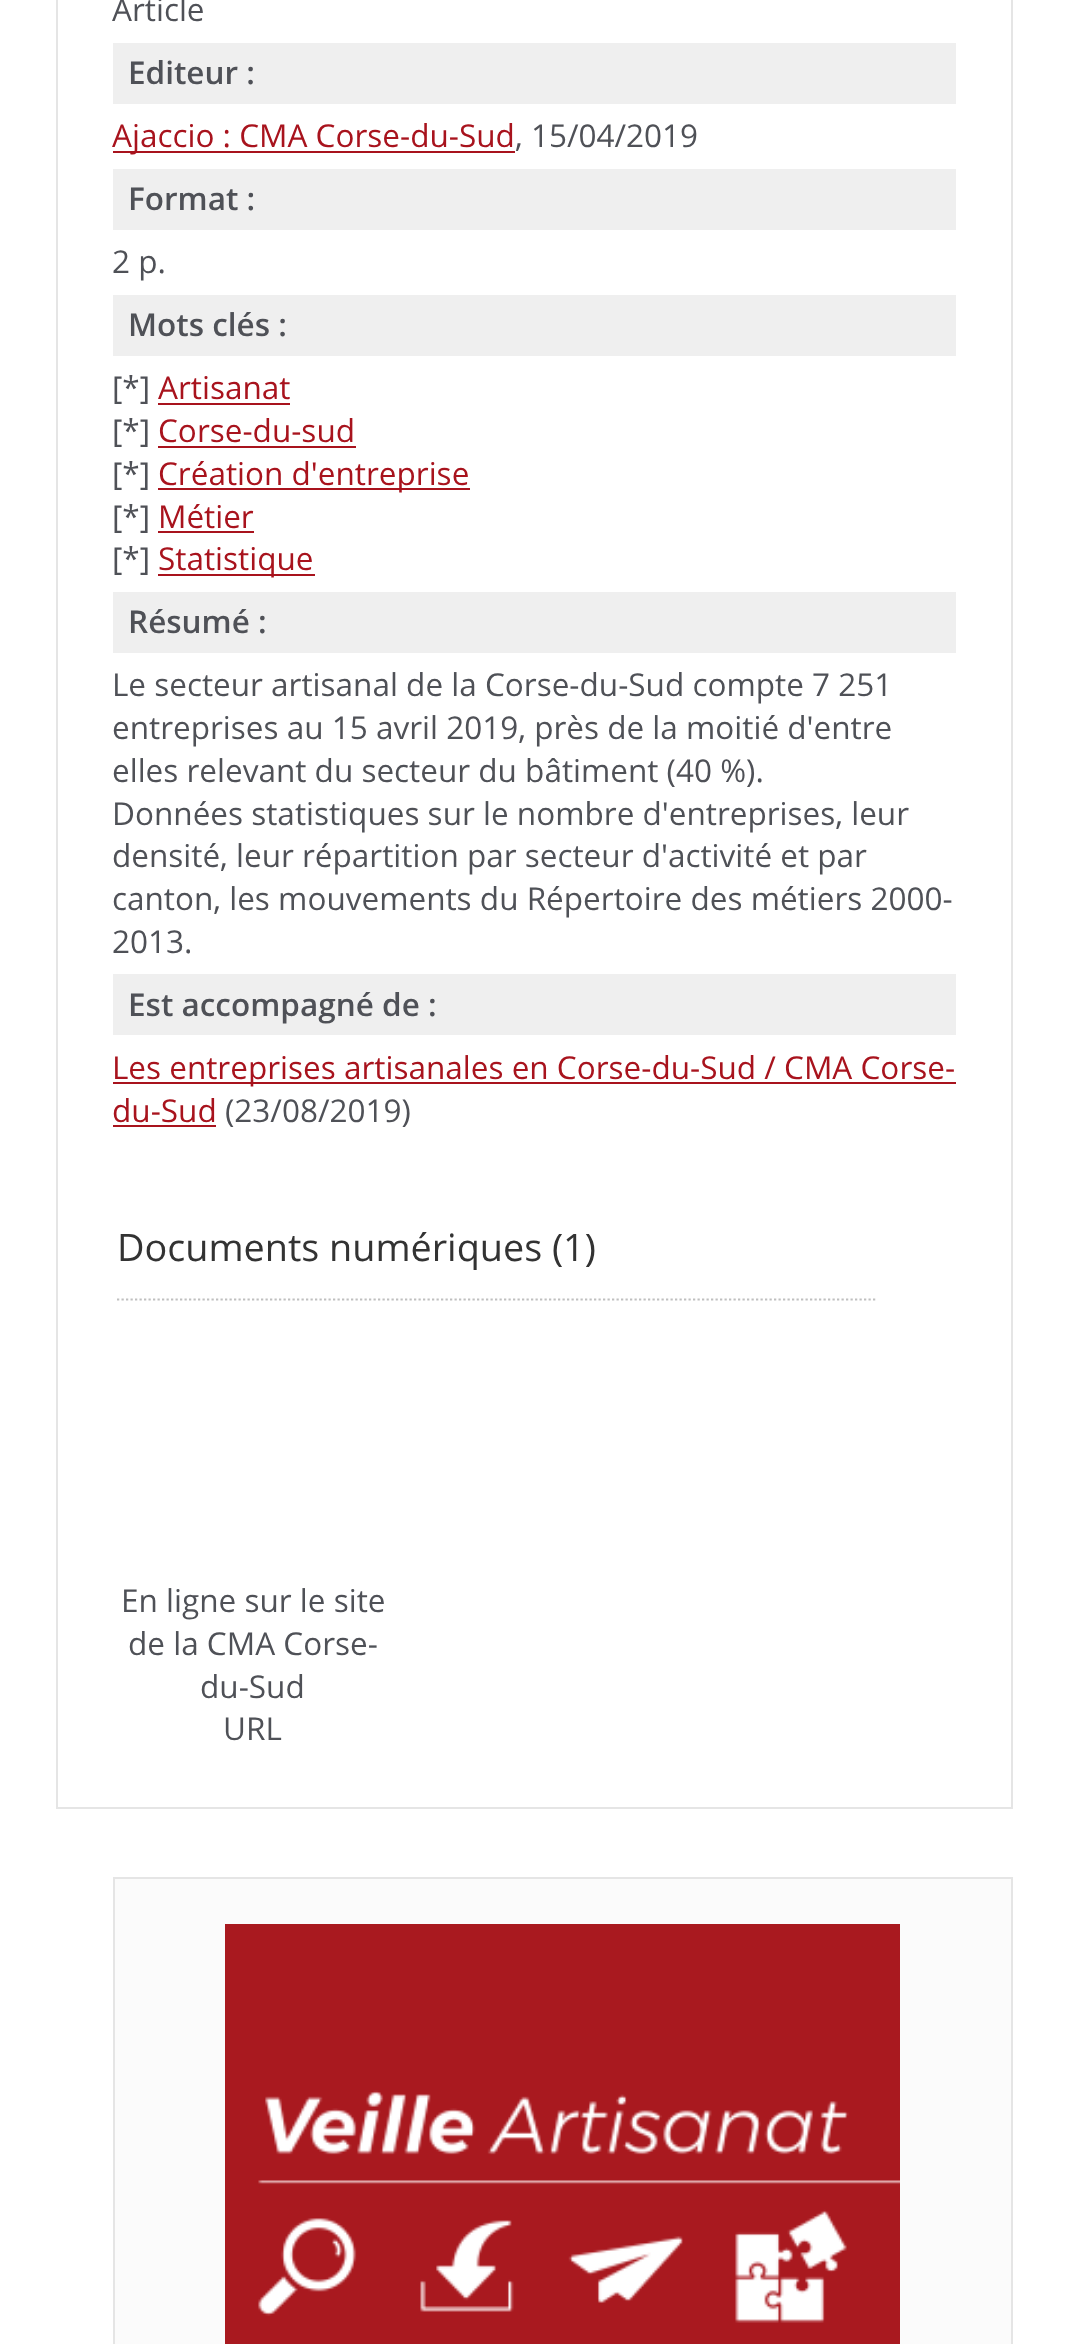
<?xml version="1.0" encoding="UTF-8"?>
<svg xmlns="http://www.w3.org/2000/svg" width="1068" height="2344">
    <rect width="100%" height="100%" fill="#FFFFFF"/>
    <rect x="57" y="-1" width="955" height="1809" fill="none" stroke="#E5E5E5" stroke-width="2"/>
    <text x="112" y="21" font-family="Open Sans" font-size="31.5" fill="#4F5157">Article</text>
    <rect x="113" y="43" width="843" height="61" fill="#EFEFEF"/>
    <text x="128" y="84" font-family="Open Sans" font-size="31.5" font-weight="600" fill="#4F5157">Editeur :</text>
    <rect x="113" y="151" width="402" height="2" fill="#A8131D"/>
    <text x="112" y="147" font-family="Open Sans" font-size="31.5" fill="#A8131D">Ajaccio : CMA Corse-du-Sud</text>
    <text x="515" y="147" font-family="Open Sans" font-size="31.5" fill="#4F5157">, 15/04/2019</text>
    <rect x="113" y="169" width="843" height="61" fill="#EFEFEF"/>
    <text x="128" y="210" font-family="Open Sans" font-size="31.5" font-weight="600" fill="#4F5157">Format :</text>
    <text x="112" y="273" font-family="Open Sans" font-size="31.5" fill="#4F5157">2 p.</text>
    <rect x="113" y="295" width="843" height="61" fill="#EFEFEF"/>
    <text x="128" y="336" font-family="Open Sans" font-size="31.5" font-weight="600" fill="#4F5157">Mots clés :</text>
    <text x="112" y="399" font-family="Open Sans" font-size="31.5" fill="#4F5157">[*]</text>
    <text x="158" y="399" font-family="Open Sans" font-size="31.5" fill="#A8131D">Artisanat</text>
    <rect x="158" y="403" width="132" height="2" fill="#A8131D"/>
    <text x="112" y="442" font-family="Open Sans" font-size="31.5" fill="#4F5157">[*]</text>
    <text x="158" y="442" font-family="Open Sans" font-size="31.5" fill="#A8131D">Corse-du-sud</text>
    <rect x="158" y="446" width="198" height="2" fill="#A8131D"/>
    <text x="112" y="485" font-family="Open Sans" font-size="31.5" fill="#4F5157">[*]</text>
    <rect x="158" y="488" width="312" height="2" fill="#A8131D"/>
    <text x="158" y="485" font-family="Open Sans" font-size="31.5" fill="#A8131D">Création d'entreprise</text>
    <text x="112" y="528" font-family="Open Sans" font-size="31.5" fill="#4F5157">[*]</text>
    <text x="158" y="528" font-family="Open Sans" font-size="31.5" fill="#A8131D">Métier</text>
    <rect x="158" y="531" width="96" height="2" fill="#A8131D"/>
    <text x="112" y="570" font-family="Open Sans" font-size="31.5" fill="#4F5157">[*]</text>
    <rect x="158" y="574" width="157" height="2" fill="#A8131D"/>
    <text x="158" y="570" font-family="Open Sans" font-size="31.5" fill="#A8131D">Statistique</text>
    <rect x="113" y="592" width="843" height="61" fill="#EFEFEF"/>
    <text x="128" y="633" font-family="Open Sans" font-size="31.5" font-weight="600" fill="#4F5157">Résumé :</text>
    <text font-family="Open Sans" font-size="31.5" fill="#4F5157">
        <tspan x="112" y="696">Le secteur artisanal de la Corse-du-Sud compte 7 251</tspan>
        <tspan x="112" y="739">entreprises au 15 avril 2019, près de la moitié d'entre</tspan>
        <tspan x="112" y="782">elles relevant du secteur du bâtiment (40 %).</tspan>
        <tspan x="112" y="825">Données statistiques sur le nombre d'entreprises, leur</tspan>
        <tspan x="112" y="867">densité, leur répartition par secteur d'activité et par</tspan>
        <tspan x="112" y="910">canton, les mouvements du Répertoire des métiers 2000-</tspan>
        <tspan x="112" y="953">2013.</tspan>
    </text>
    <rect x="113" y="974" width="843" height="61" fill="#EFEFEF"/>
    <text x="128" y="1016" font-family="Open Sans" font-size="31.5" font-weight="600" fill="#4F5157">Est accompagné de :</text>
    <rect x="113" y="1082" width="843" height="2" fill="#A8131D"/>
    <text font-family="Open Sans" font-size="31.5" fill="#A8131D">
        <tspan x="112" y="1079">Les entreprises artisanales en Corse-du-Sud / CMA Corse-</tspan>
        <tspan x="112" y="1122">du-Sud</tspan>
    </text>
    <rect x="113" y="1125" width="103" height="2" fill="#A8131D"/>
    <text x="225" y="1122" font-family="Open Sans" font-size="31.5" fill="#4F5157">(23/08/2019)</text>
    <path d="M 117 1299.5 H 877.5" fill="none" stroke="#BFBFBF" stroke-width="2.2" stroke-dasharray="2.25 2.25"/>
    <text x="117" y="1261" font-family="Open Sans" font-size="37.75" fill="#333333">Documents numériques (1)</text>
    <text x="121" y="1612" font-family="Open Sans" font-size="31.5" fill="#4F5157">En ligne sur le site</text>
    <text x="128" y="1655" font-family="Open Sans" font-size="31.5" fill="#4F5157">de la CMA Corse-</text>
    <text x="200" y="1698" font-family="Open Sans" font-size="31.5" fill="#4F5157">du-Sud</text>
    <text x="223" y="1740" font-family="Open Sans" font-size="31.5" fill="#4F5157">URL</text>
    <rect x="114" y="1878" width="898" height="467" fill="#FBFBFB" stroke="#E5E5E5" stroke-width="2"/>
    <image x="225" y="1924" width="675" height="420" href="img_01.png"/>
</svg>
